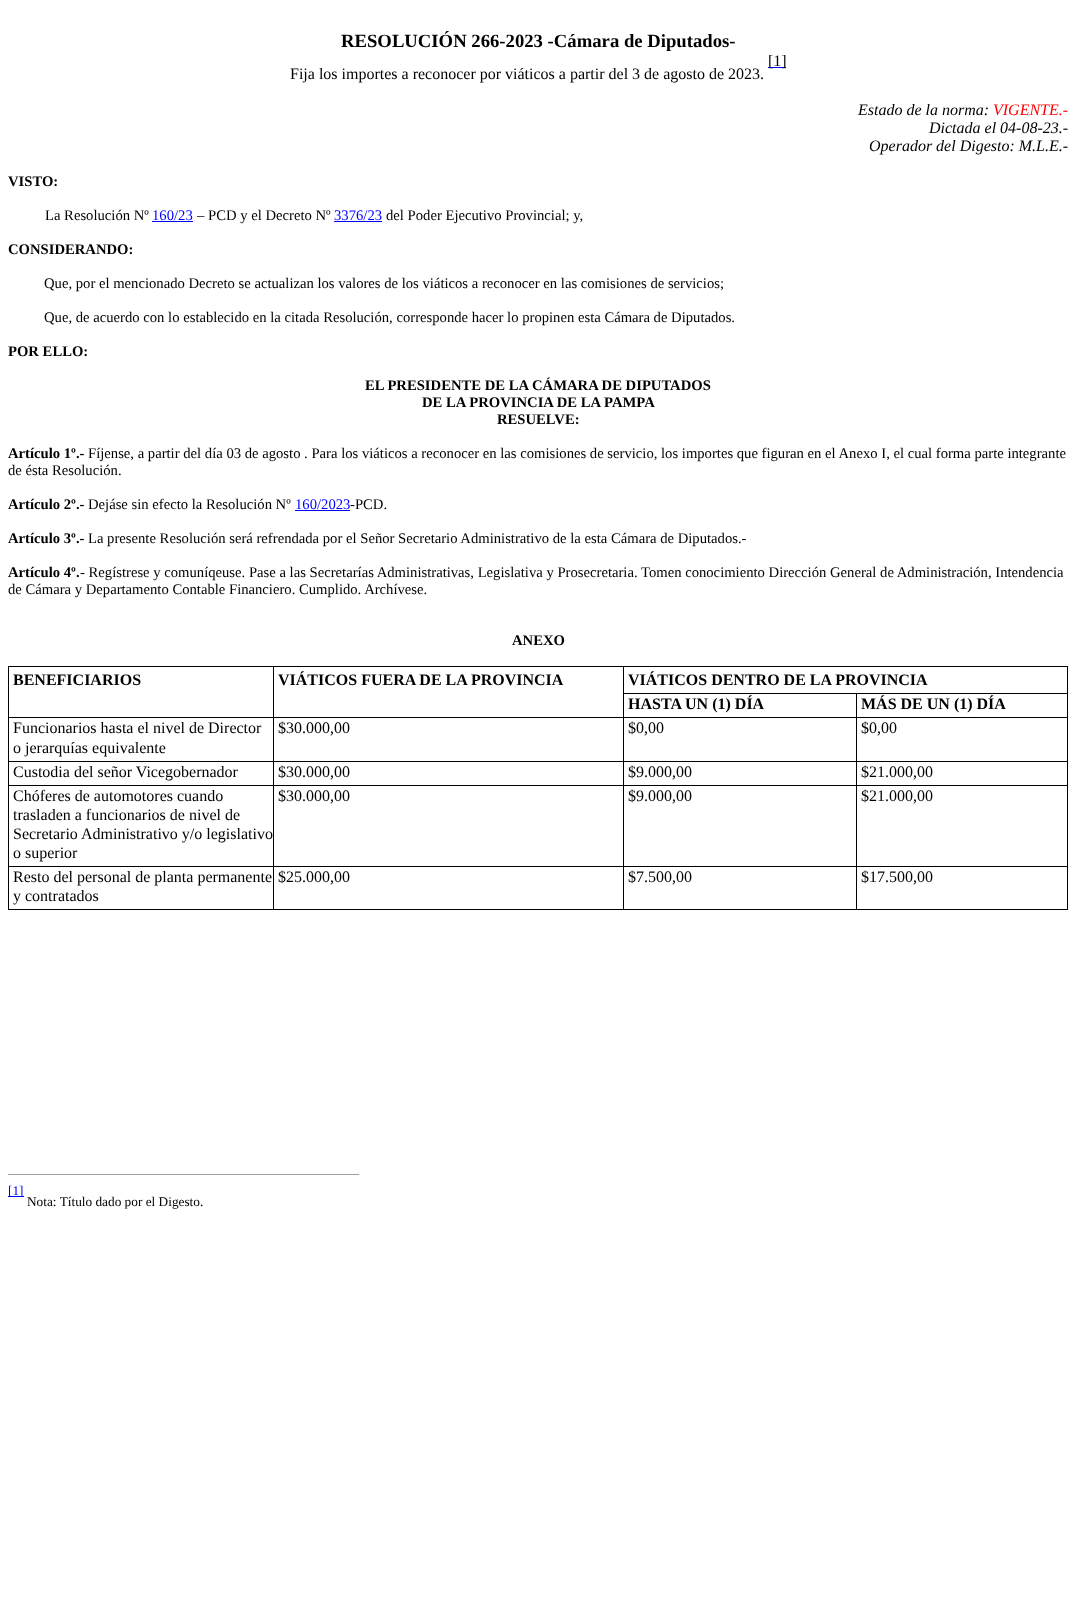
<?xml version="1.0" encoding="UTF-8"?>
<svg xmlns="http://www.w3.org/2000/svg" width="1076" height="1612">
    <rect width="100%" height="100%" fill="#FFFFFF"/>
    <text x="341" y="47" font-family="Liberation Serif" font-size="18.7" font-weight="700" fill="#000000">RESOLUCIÓN 266-2023 -Cámara de Diputados-</text>
    <rect x="768" y="67" width="18" height="1" fill="#0000FF"/>
    <text x="768" y="66" font-family="Liberation Serif" font-size="16" fill="#000000">[1]</text>
    <text x="290" y="79" font-family="Liberation Serif" font-size="16" fill="#000000">Fija los importes a reconocer por viáticos a partir del 3 de agosto de 2023.</text>
    <text x="858" y="115" font-family="Liberation Serif" font-size="16" font-style="italic" fill="#000000">Estado de la norma:</text>
    <text x="993" y="115" font-family="Liberation Serif" font-size="16" font-style="italic" fill="#FF0000">VIGENTE.-</text>
    <text x="929" y="133" font-family="Liberation Serif" font-size="16" font-style="italic" fill="#000000">Dictada el 04-08-23.-</text>
    <text x="869" y="151" font-family="Liberation Serif" font-size="16" font-style="italic" fill="#000000">Operador del Digesto: M.L.E.-</text>
    <text x="8" y="186" font-family="Liberation Serif" font-size="14.67" font-weight="700" fill="#000000">VISTO:</text>
    <text x="45" y="220" font-family="Liberation Serif" font-size="14.67" fill="#000000">La Resolución Nº</text>
    <text x="152" y="220" font-family="Liberation Serif" font-size="14.67" fill="#0000FF">160/23</text>
    <rect x="152" y="221" width="41" height="1" fill="#0000FF"/>
    <text x="197" y="220" font-family="Liberation Serif" font-size="14.67" fill="#000000">– PCD y el Decreto Nº</text>
    <text x="334" y="220" font-family="Liberation Serif" font-size="14.67" fill="#0000FF">3376/23</text>
    <rect x="334" y="221" width="48" height="1" fill="#0000FF"/>
    <text x="386" y="220" font-family="Liberation Serif" font-size="14.67" fill="#000000">del Poder Ejecutivo Provincial; y,</text>
    <text x="8" y="254" font-family="Liberation Serif" font-size="14.67" font-weight="700" fill="#000000">CONSIDERANDO:</text>
    <text x="44" y="288" font-family="Liberation Serif" font-size="14.67" fill="#000000">Que, por el mencionado Decreto se actualizan los valores de los viáticos a reconocer en las comisiones de servicios;</text>
    <text x="44" y="322" font-family="Liberation Serif" font-size="14.67" fill="#000000">Que, de acuerdo con lo establecido en la citada Resolución, corresponde hacer lo propinen esta Cámara de Diputados.</text>
    <text x="8" y="356" font-family="Liberation Serif" font-size="14.67" font-weight="700" fill="#000000">POR ELLO:</text>
    <text x="365" y="390" font-family="Liberation Serif" font-size="14.67" font-weight="700" fill="#000000">EL PRESIDENTE DE LA CÁMARA DE DIPUTADOS</text>
    <text x="422" y="407" font-family="Liberation Serif" font-size="14.67" font-weight="700" fill="#000000">DE LA PROVINCIA DE LA PAMPA</text>
    <text x="497" y="424" font-family="Liberation Serif" font-size="14.67" font-weight="700" fill="#000000">RESUELVE:</text>
    <text x="8" y="458" font-family="Liberation Serif" font-size="14.67" font-weight="700" fill="#000000">Artículo 1º.-</text>
    <text x="88" y="458" font-family="Liberation Serif" font-size="14.67" fill="#000000">Fíjense, a partir del día 03 de agosto . Para los viáticos a reconocer en las comisiones de servicio, los importes que figuran en el Anexo I, el cual forma parte integrante</text>
    <text x="8" y="475" font-family="Liberation Serif" font-size="14.67" fill="#000000">de ésta Resolución.</text>
    <text x="8" y="509" font-family="Liberation Serif" font-size="14.67" font-weight="700" fill="#000000">Artículo 2º.-</text>
    <text x="88" y="509" font-family="Liberation Serif" font-size="14.67" fill="#000000">Dejáse sin efecto la Resolución Nº</text>
    <text x="295" y="509" font-family="Liberation Serif" font-size="14.67" fill="#0000FF">160/2023</text>
    <rect x="295" y="510" width="55" height="1" fill="#0000FF"/>
    <text x="350" y="509" font-family="Liberation Serif" font-size="14.67" fill="#000000">-PCD.</text>
    <text x="8" y="543" font-family="Liberation Serif" font-size="14.67" font-weight="700" fill="#000000">Artículo 3º.-</text>
    <text x="88" y="543" font-family="Liberation Serif" font-size="14.67" fill="#000000">La presente Resolución será refrendada por el Señor Secretario Administrativo de la esta Cámara de Diputados.-</text>
    <text x="8" y="577" font-family="Liberation Serif" font-size="14.67" font-weight="700" fill="#000000">Artículo 4º.</text>
    <text x="80" y="577" font-family="Liberation Serif" font-size="14.67" fill="#000000">- Regístrese y comuníqeuse. Pase a las Secretarías Administrativas, Legislativa y Prosecretaria. Tomen conocimiento Dirección General de Administración, Intendencia</text>
    <text x="8" y="594" font-family="Liberation Serif" font-size="14.67" fill="#000000">de Cámara y Departamento Contable Financiero. Cumplido. Archívese.</text>
    <text x="512" y="645" font-family="Liberation Serif" font-size="14.67" font-weight="700" fill="#000000">ANEXO</text>
    <rect x="8" y="666" width="615" height="1" fill="#000000"/>
    <rect x="8" y="717" width="848" height="1" fill="#000000"/>
    <rect x="8" y="666" width="1" height="52" fill="#000000"/>
    <text x="13" y="685" font-family="Liberation Serif" font-size="16" font-weight="700" fill="#000000">BENEFICIARIOS</text>
    <rect x="273" y="666" width="1" height="52" fill="#000000"/>
    <text x="278" y="685" font-family="Liberation Serif" font-size="16" font-weight="700" fill="#000000">VIÁTICOS FUERA DE LA PROVINCIA</text>
    <rect x="623.5" y="666.5" width="444" height="27" fill="none" stroke="#000000"/>
    <text x="628" y="685" font-family="Liberation Serif" font-size="16" font-weight="700" fill="#000000">VIÁTICOS DENTRO DE LA PROVINCIA</text>
    <rect x="623" y="694" width="1" height="24" fill="#000000"/>
    <text x="628" y="709" font-family="Liberation Serif" font-size="16" font-weight="700" fill="#000000">HASTA UN (1) DÍA</text>
    <rect x="1067" y="694" width="1" height="216" fill="#000000"/>
    <rect x="856" y="717" width="212" height="1" fill="#000000"/>
    <rect x="856" y="694" width="1" height="24" fill="#000000"/>
    <text x="861" y="709" font-family="Liberation Serif" font-size="16" font-weight="700" fill="#000000">MÁS DE UN (1) DÍA</text>
    <rect x="8" y="761" width="1060" height="1" fill="#000000"/>
    <rect x="8" y="718" width="1" height="44" fill="#000000"/>
    <text font-family="Liberation Serif" font-size="16" fill="#000000">
        <tspan x="13" y="733">Funcionarios hasta el nivel de Director</tspan>
        <tspan x="13" y="753">o jerarquías equivalente</tspan>
    </text>
    <rect x="273" y="718" width="1" height="44" fill="#000000"/>
    <text x="278" y="733" font-family="Liberation Serif" font-size="16" fill="#000000">$30.000,00</text>
    <rect x="623" y="718" width="1" height="44" fill="#000000"/>
    <text x="628" y="733" font-family="Liberation Serif" font-size="16" fill="#000000">$0,00</text>
    <rect x="856" y="718" width="1" height="44" fill="#000000"/>
    <text x="861" y="733" font-family="Liberation Serif" font-size="16" fill="#000000">$0,00</text>
    <rect x="8" y="785" width="1060" height="1" fill="#000000"/>
    <rect x="8" y="762" width="1" height="24" fill="#000000"/>
    <text x="13" y="777" font-family="Liberation Serif" font-size="16" fill="#000000">Custodia del señor Vicegobernador</text>
    <rect x="273" y="762" width="1" height="24" fill="#000000"/>
    <text x="278" y="777" font-family="Liberation Serif" font-size="16" fill="#000000">$30.000,00</text>
    <rect x="623" y="762" width="1" height="24" fill="#000000"/>
    <text x="628" y="777" font-family="Liberation Serif" font-size="16" fill="#000000">$9.000,00</text>
    <rect x="856" y="762" width="1" height="24" fill="#000000"/>
    <text x="861" y="777" font-family="Liberation Serif" font-size="16" fill="#000000">$21.000,00</text>
    <rect x="8" y="866" width="1060" height="1" fill="#000000"/>
    <rect x="8" y="786" width="1" height="81" fill="#000000"/>
    <text font-family="Liberation Serif" font-size="16" fill="#000000">
        <tspan x="13" y="801">Chóferes de automotores cuando</tspan>
        <tspan x="13" y="820">trasladen a funcionarios de nivel de</tspan>
        <tspan x="13" y="839">Secretario Administrativo y/o legislativo</tspan>
        <tspan x="13" y="858">o superior</tspan>
    </text>
    <rect x="273" y="786" width="1" height="81" fill="#000000"/>
    <text x="278" y="801" font-family="Liberation Serif" font-size="16" fill="#000000">$30.000,00</text>
    <rect x="623" y="786" width="1" height="81" fill="#000000"/>
    <text x="628" y="801" font-family="Liberation Serif" font-size="16" fill="#000000">$9.000,00</text>
    <rect x="856" y="786" width="1" height="81" fill="#000000"/>
    <text x="861" y="801" font-family="Liberation Serif" font-size="16" fill="#000000">$21.000,00</text>
    <rect x="8" y="909" width="1060" height="1" fill="#000000"/>
    <rect x="8" y="867" width="1" height="43" fill="#000000"/>
    <text font-family="Liberation Serif" font-size="16" fill="#000000">
        <tspan x="13" y="882">Resto del personal de planta permanente</tspan>
        <tspan x="13" y="901">y contratados</tspan>
    </text>
    <rect x="273" y="867" width="1" height="43" fill="#000000"/>
    <text x="278" y="882" font-family="Liberation Serif" font-size="16" fill="#000000">$25.000,00</text>
    <rect x="623" y="867" width="1" height="43" fill="#000000"/>
    <text x="628" y="882" font-family="Liberation Serif" font-size="16" fill="#000000">$7.500,00</text>
    <rect x="856" y="867" width="1" height="43" fill="#000000"/>
    <text x="861" y="882" font-family="Liberation Serif" font-size="16" fill="#000000">$17.500,00</text>
    <rect x="8" y="1174" width="352" height="1" fill="#9F9F9F"/>
    <rect x="359" y="1174" width="1" height="1" fill="#EEEEEE"/>
    <rect x="8" y="1196" width="16" height="1" fill="#0000FF"/>
    <text x="8" y="1195" font-family="Liberation Serif" font-size="13.3" fill="#0000FF">[1]</text>
    <text x="27" y="1206" font-family="Liberation Serif" font-size="13.3" fill="#000000">Nota: Título dado por el Digesto.</text>
</svg>
